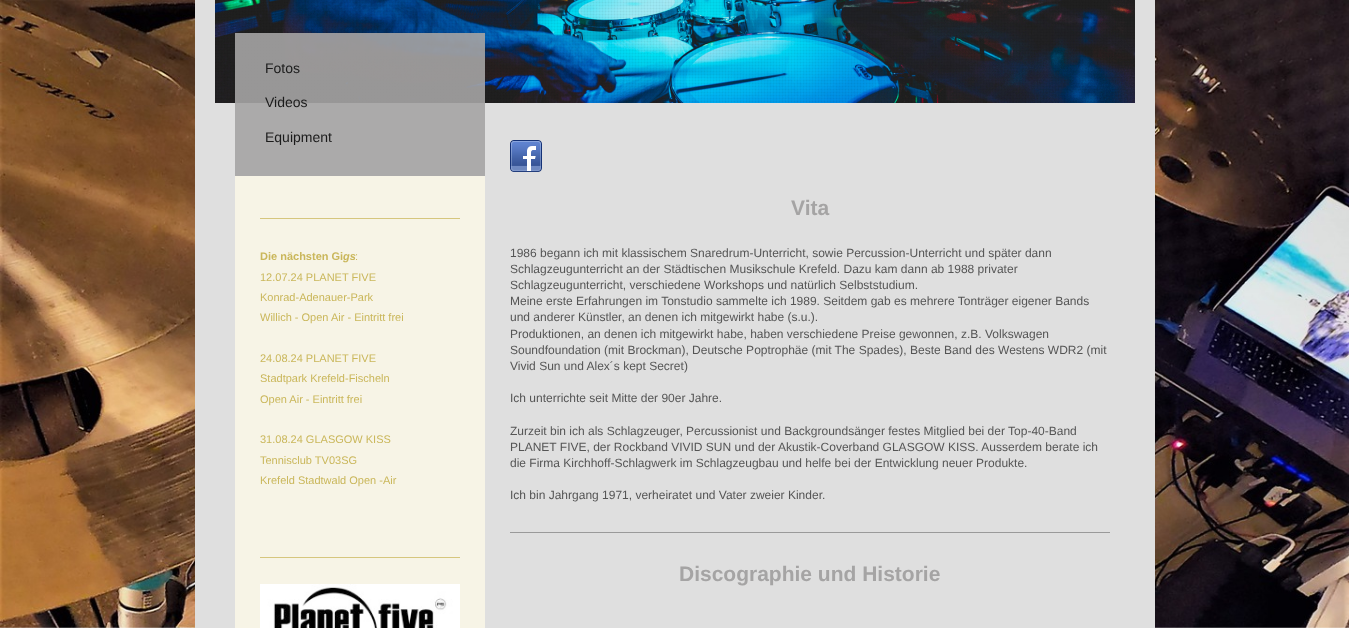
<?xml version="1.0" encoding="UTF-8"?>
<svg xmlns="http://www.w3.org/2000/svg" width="1349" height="628">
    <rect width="100%" height="100%" fill="#FFFFFF"/>
    <image x="0" y="0" width="1349" height="628" href="img_01.png"/>
    <rect x="195" y="0" width="960" height="628" fill="#DFDFDF"/>
    <image x="215" y="0" width="920" height="103" href="img_02.png"/>
    <image x="215" y="0" width="920" height="103" href="img_03.png"/>
    <rect x="235" y="33" width="250" height="143" fill="#A5A4A4" fill-opacity="0.9"/>
    <text x="265" y="73" font-family="Liberation Sans" font-size="14" fill="#1B1B1B">Fotos</text>
    <text x="265" y="107" font-family="Liberation Sans" font-size="14" fill="#1B1B1B">Videos</text>
    <text x="265" y="142" font-family="Liberation Sans" font-size="14" fill="#1B1B1B">Equipment</text>
    <rect x="235" y="176" width="250" height="452" fill="#F7F4E6"/>
    <rect x="260" y="218" width="200" height="1" fill="#D6C67E"/>
    <text x="260" y="260" font-family="Liberation Sans" font-size="11" font-weight="700" fill="#CAB75B">Die nächsten Gi</text>
    <text x="343" y="260" font-family="Liberation Sans" font-size="11" font-weight="700" font-style="italic" fill="#CAB75B">gs</text>
    <text x="355" y="260" font-family="Liberation Sans" font-size="11" fill="#CAB75B">:</text>
    <text font-family="Liberation Sans" font-size="11" fill="#CAB75B">
        <tspan x="260" y="281">12.07.24 PLANET FIVE</tspan>
        <tspan x="260" y="301">Konrad-Adenauer-Park</tspan>
        <tspan x="260" y="321">Willich - Open Air - Eintritt frei</tspan>
    </text>
    <text font-family="Liberation Sans" font-size="11" fill="#CAB75B">
        <tspan x="260" y="362">24.08.24 PLANET FIVE</tspan>
        <tspan x="260" y="382">Stadtpark Krefeld-Fischeln</tspan>
        <tspan x="260" y="403">Open Air - Eintritt frei</tspan>
    </text>
    <text font-family="Liberation Sans" font-size="11" fill="#CAB75B">
        <tspan x="260" y="443">31.08.24 GLASGOW KISS</tspan>
        <tspan x="260" y="464">Tennisclub TV03SG</tspan>
        <tspan x="260" y="484">Krefeld Stadtwald Open -Air</tspan>
    </text>
    <rect x="260" y="557" width="200" height="1" fill="#D6C67E"/>
    <image x="260" y="584" width="200" height="44" href="img_04.png"/>
    <image x="510" y="140" width="32" height="32" href="img_05.png"/>
    <text x="791" y="215" font-family="Liberation Sans" font-size="21" font-weight="700" fill="#A5A4A4">Vita</text>
    <text font-family="Liberation Sans" font-size="12" fill="#555555">
        <tspan x="510" y="257">1986 begann ich mit klassischem Snaredrum-Unterricht, sowie Percussion-Unterricht und später dann</tspan>
        <tspan x="510" y="273">Schlagzeugunterricht an der Städtischen Musikschule Krefeld. Dazu kam dann ab 1988 privater</tspan>
        <tspan x="510" y="289">Schlagzeugunterricht, verschiedene Workshops und natürlich Selbststudium.</tspan>
        <tspan x="510" y="305">Meine erste Erfahrungen im Tonstudio sammelte ich 1989. Seitdem gab es mehrere Tonträger eigener Bands</tspan>
        <tspan x="510" y="321">und anderer Künstler, an denen ich mitgewirkt habe (s.u.).</tspan>
        <tspan x="510" y="338">Produktionen, an denen ich mitgewirkt habe, haben verschiedene Preise gewonnen, z.B. Volkswagen</tspan>
        <tspan x="510" y="354">Soundfoundation (mit Brockman), Deutsche Poptrophäe (mit The Spades), Beste Band des Westens WDR2 (mit</tspan>
        <tspan x="510" y="370">Vivid Sun und Alex´s kept Secret)</tspan>
    </text>
    <text x="510" y="402" font-family="Liberation Sans" font-size="12" fill="#555555">Ich unterrichte seit Mitte der 90er Jahre.</text>
    <text font-family="Liberation Sans" font-size="12" fill="#555555">
        <tspan x="510" y="435">Zurzeit bin ich als Schlagzeuger, Percussionist und Backgroundsänger festes Mitglied bei der Top-40-Band</tspan>
        <tspan x="510" y="451">PLANET FIVE, der Rockband VIVID SUN und der Akustik-Coverband GLASGOW KISS. Ausserdem berate ich</tspan>
        <tspan x="510" y="467">die Firma Kirchhoff-Schlagwerk im Schlagzeugbau und helfe bei der Entwicklung neuer Produkte.</tspan>
    </text>
    <text x="510" y="499" font-family="Liberation Sans" font-size="12" fill="#555555">Ich bin Jahrgang 1971, verheiratet und Vater zweier Kinder.</text>
    <rect x="510" y="532" width="600" height="1" fill="#9A9A9A"/>
    <text x="679" y="581" font-family="Liberation Sans" font-size="21" font-weight="700" fill="#A5A4A4">Discographie und Historie</text>
</svg>
